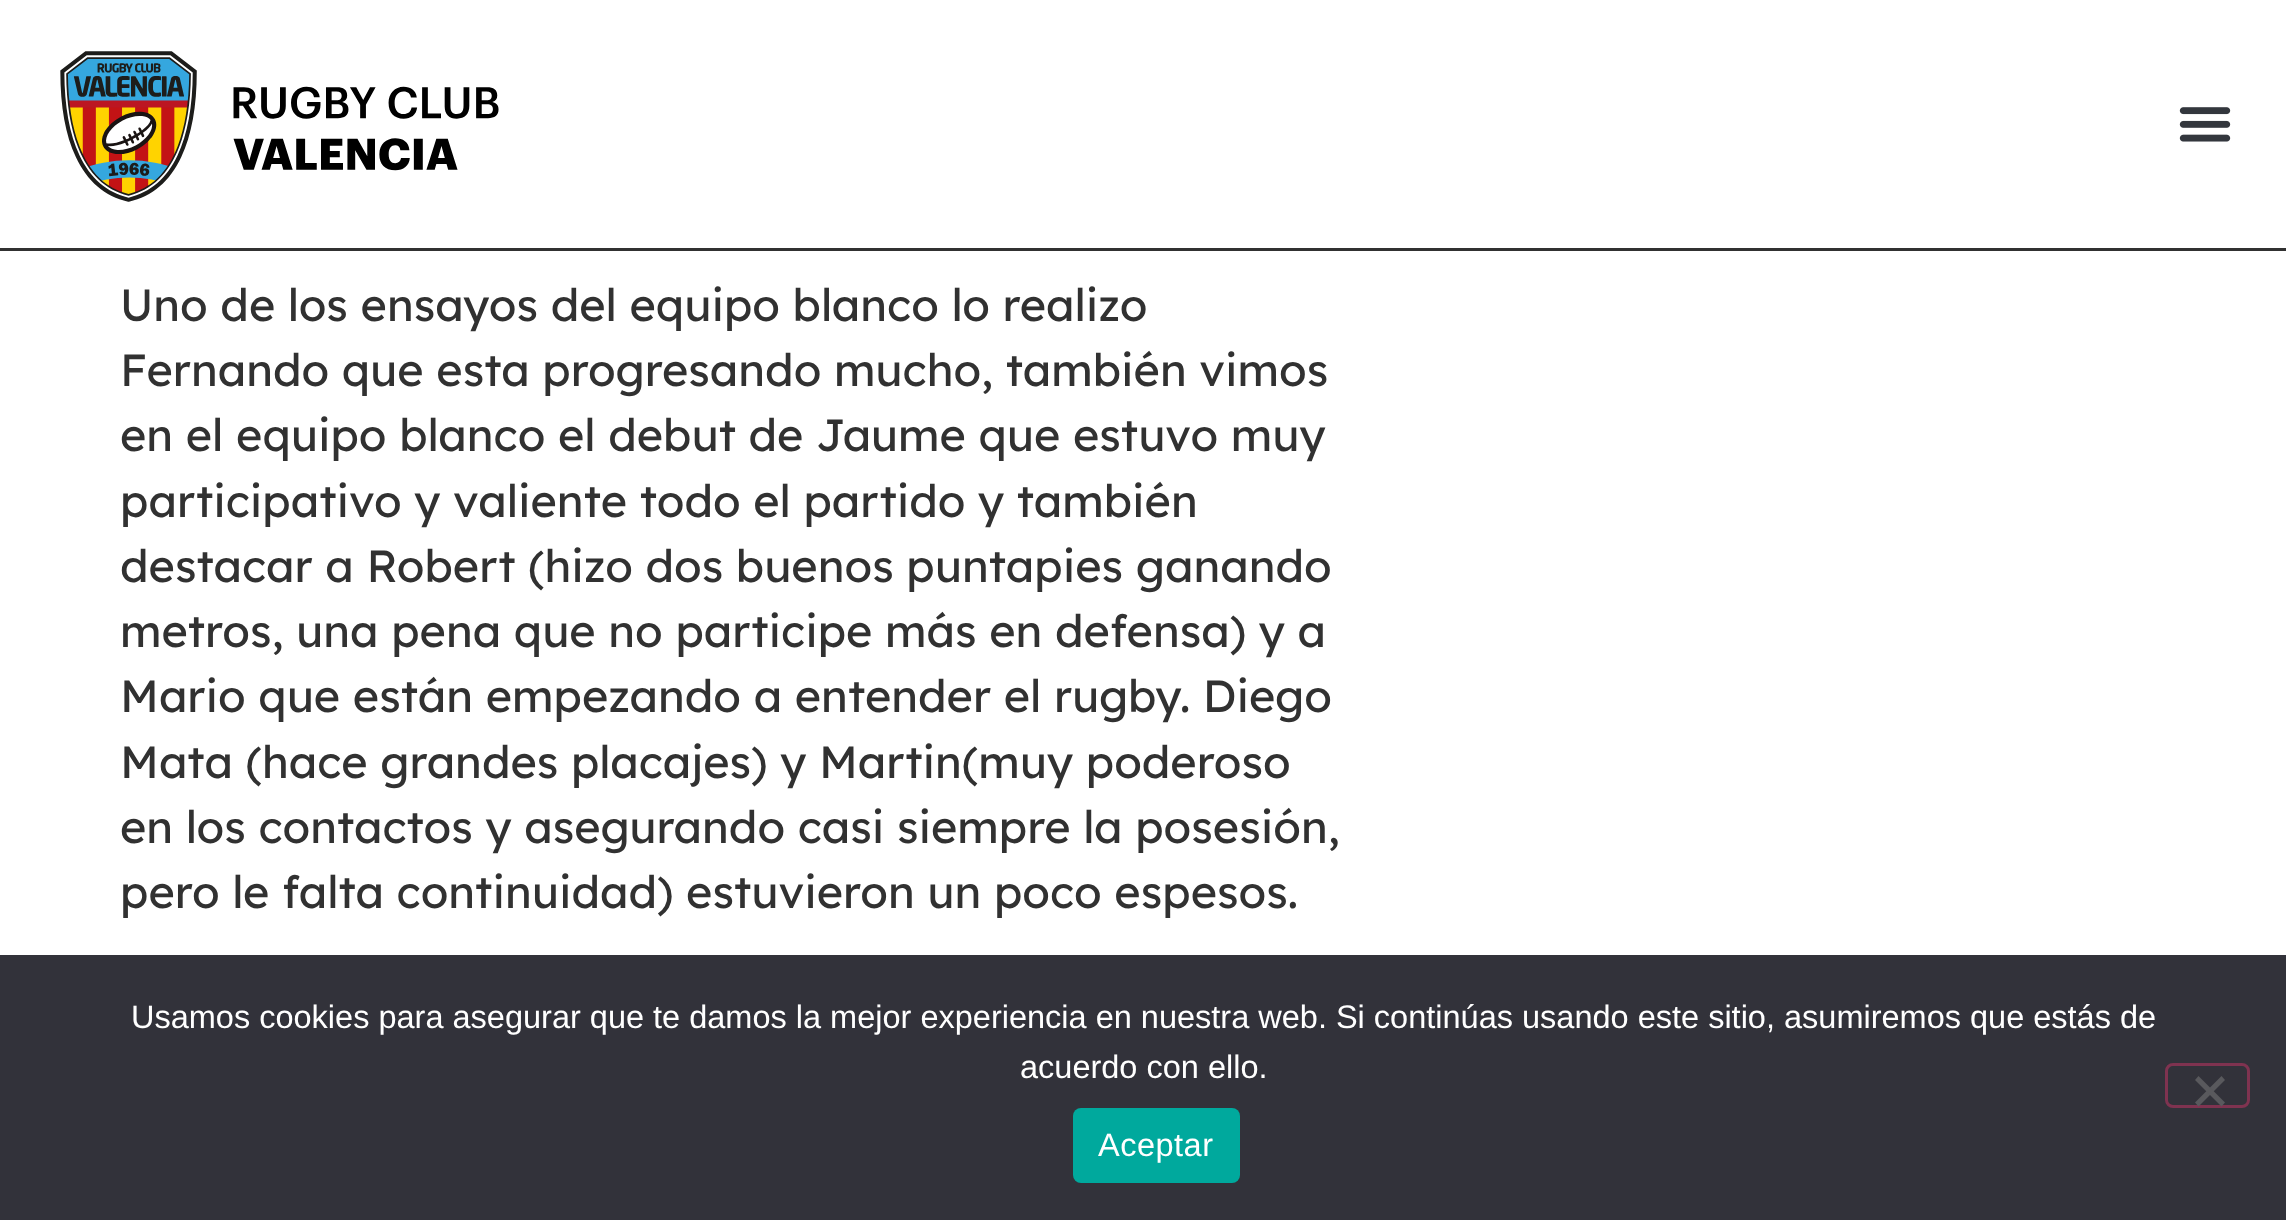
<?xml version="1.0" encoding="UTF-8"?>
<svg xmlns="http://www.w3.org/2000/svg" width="2286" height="1220">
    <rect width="100%" height="100%" fill="#FFFFFF"/>
    <rect x="0" y="248" width="2286" height="3" fill="#313131"/>
    <image x="60" y="51" width="439" height="151" href="img_01.png"/>
    <image x="2179" y="107" width="52" height="35" href="img_02.png"/>
    <text font-family="Lexend" font-size="45" fill="#313131">
        <tspan x="120" y="321">Uno de los ensayos del equipo blanco lo realizo</tspan>
        <tspan x="120" y="386">Fernando que esta progresando mucho, también vimos</tspan>
        <tspan x="120" y="451">en el equipo blanco el debut de Jaume que estuvo muy</tspan>
        <tspan x="120" y="517">participativo y valiente todo el partido y también</tspan>
        <tspan x="120" y="582">destacar a Robert (hizo dos buenos puntapies ganando</tspan>
        <tspan x="120" y="647">metros, una pena que no participe más en defensa) y a</tspan>
        <tspan x="120" y="712">Mario que están empezando a entender el rugby. Diego</tspan>
        <tspan x="120" y="778">Mata (hace grandes placajes) y Martin(muy poderoso</tspan>
        <tspan x="120" y="843">en los contactos y asegurando casi siempre la posesión,</tspan>
        <tspan x="120" y="908">pero le falta continuidad) estuvieron un poco espesos.</tspan>
    </text>
    <rect x="0" y="955" width="2286" height="265" fill="#32323A"/>
    <text x="131" y="1028" font-family="Liberation Sans" font-size="32.5" fill="#FFFFFF">Usamos cookies para asegurar que te damos la mejor experiencia en nuestra web. Si continúas usando este sitio, asumiremos que estás de</text>
    <text x="1020" y="1078" font-family="Liberation Sans" font-size="32.5" fill="#FFFFFF">acuerdo con ello.</text>
    <rect x="2166.5" y="1064.5" width="82" height="42" rx="6.5" fill="none" stroke="#7F3350" stroke-width="3"/>
    <path d="M 2221.5 1076 L 2225 1080 L 2198.5 1106.5 L 2195 1102.5 Z" fill="#59595D"/>
    <path d="M 2195 1080 L 2198.5 1076 L 2225 1102.5 L 2221.5 1106.5 Z" fill="#59595D"/>
    <rect x="1073" y="1108" width="167" height="75" rx="8" fill="#00A99D"/>
    <text x="1098" y="1156" font-family="Liberation Sans" font-size="32.5" letter-spacing="0.5" fill="#FFFFFF">Aceptar</text>
</svg>
